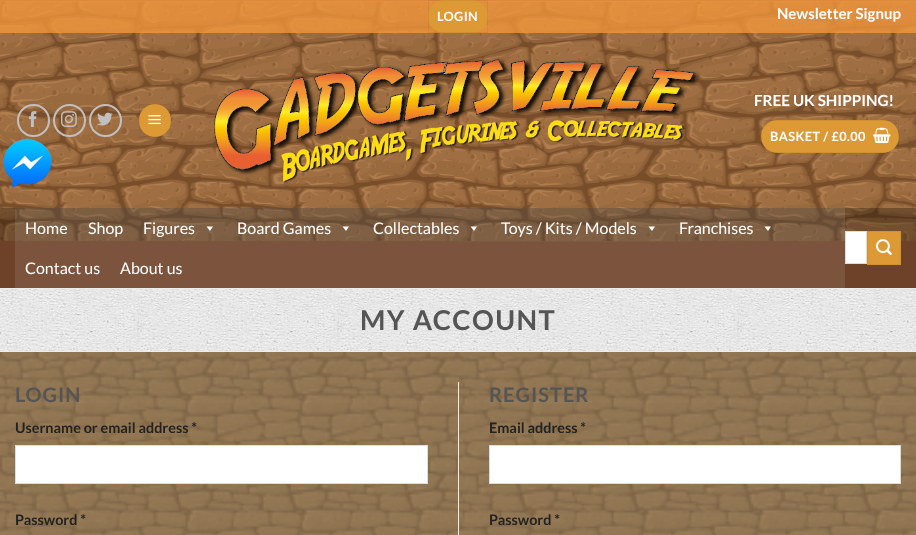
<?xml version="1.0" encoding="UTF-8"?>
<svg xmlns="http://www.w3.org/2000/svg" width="916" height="535">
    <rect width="100%" height="100%" fill="#FFFFFF"/>
    <rect x="0" y="0" width="916" height="288" fill="#995A39"/>
    <image x="0" y="1" width="916" height="241" href="img_01.png"/>
    <rect x="0" y="0" width="916" height="33" fill="#F2973C" fill-opacity="0.79"/>
    <rect x="428" y="0" width="60" height="33" rx="16.5" fill="#DD9933"/>
    <rect x="428.5" y="0.5" width="59" height="32" fill="none" stroke="#000000" stroke-opacity="0.05"/>
    <text x="437" y="21" font-family="Lato" font-size="12.75" font-weight="700" letter-spacing="0.4" fill="#FFFFFF">LOGIN</text>
    <text x="777" y="19" font-family="Lato" font-size="15" font-weight="700" fill="#FFFFFF">Newsletter Signup</text>
    <circle cx="33.5" cy="120.5" r="15.5" fill="none" stroke="#C0C0C0" stroke-width="2"/>
    <image x="28" y="111" width="9" height="16" href="img_02.png"/>
    <circle cx="69.5" cy="120.5" r="15.5" fill="none" stroke="#C0C0C0" stroke-width="2"/>
    <image x="61" y="111" width="16" height="16" href="img_03.png"/>
    <circle cx="105.5" cy="120.5" r="15.5" fill="none" stroke="#C0C0C0" stroke-width="2"/>
    <image x="97" y="112" width="16" height="14" href="img_04.png"/>
    <rect x="139" y="104" width="32" height="33" rx="16" fill="#DD9933"/>
    <rect x="139.5" y="104.5" width="31" height="32" fill="none" stroke="#000000" stroke-opacity="0.05"/>
    <image x="148" y="115" width="13" height="10" href="img_05.png"/>
    <image x="214" y="58" width="487" height="125" href="img_06.png"/>
    <text x="754" y="106" font-family="Lato" font-size="15.25" font-weight="700" fill="#FFFFFF">FREE UK SHIPPING!</text>
    <rect x="761" y="120" width="138" height="33" rx="16.5" fill="#DD9933"/>
    <rect x="761.5" y="120.5" width="137" height="32" fill="none" stroke="#000000" stroke-opacity="0.05"/>
    <text x="770" y="141" font-family="Lato" font-size="12.75" font-weight="700" letter-spacing="0.4" fill="#FFFFFF">BASKET / £0.00</text>
    <image x="873" y="127" width="18" height="17" href="img_07.png"/>
    <rect x="0" y="208" width="916" height="80" fill="#000000" fill-opacity="0.28"/>
    <rect x="15" y="208" width="830" height="80" fill="#FFFFFF" fill-opacity="0.1"/>
    <text x="25" y="234" font-family="Lato" font-size="16" fill="#FFFFFF">Home</text>
    <text x="88" y="234" font-family="Lato" font-size="16" fill="#FFFFFF">Shop</text>
    <text x="143" y="234" font-family="Lato" font-size="16" fill="#FFFFFF">Figures</text>
    <path d="M 213 226.5 L 210 231 L 206.5 226.5 Z" fill="#FFFFFF"/>
    <text x="237" y="234" font-family="Lato" font-size="16" fill="#FFFFFF">Board Games</text>
    <path d="M 349 226.5 L 346 231 L 342.5 226.5 Z" fill="#FFFFFF"/>
    <text x="373" y="234" font-family="Lato" font-size="16" fill="#FFFFFF">Collectables</text>
    <path d="M 477 226.5 L 474 231 L 470.5 226.5 Z" fill="#FFFFFF"/>
    <text x="501" y="234" font-family="Lato" font-size="16" fill="#FFFFFF">Toys / Kits / Models</text>
    <path d="M 655 226.5 L 652 231 L 648.5 226.5 Z" fill="#FFFFFF"/>
    <text x="679" y="234" font-family="Lato" font-size="16" fill="#FFFFFF">Franchises</text>
    <path d="M 771 226.5 L 768 231 L 764.5 226.5 Z" fill="#FFFFFF"/>
    <text x="25" y="274" font-family="Lato" font-size="16" fill="#FFFFFF">Contact us</text>
    <text x="120" y="274" font-family="Lato" font-size="16" fill="#FFFFFF">About us</text>
    <rect x="845.5" y="231.5" width="21" height="32" fill="#FFFFFF" stroke="#DDDDDD"/>
    <rect x="867.5" y="231.5" width="33" height="33" fill="#DD9933" stroke="#D29130"/>
    <image x="876" y="239" width="16" height="16" href="img_08.png"/>
    <image x="0" y="352" width="916" height="183" href="img_09.png"/>
    <image x="0" y="289" width="916" height="62" href="img_10.png"/>
    <rect x="0" y="288" width="916" height="1" fill="#ECECEC"/>
    <rect x="0" y="351" width="916" height="1" fill="#ECECEC"/>
    <text x="360" y="330" font-family="Lato" font-size="27.25" font-weight="700" letter-spacing="1.4" fill="#555555">MY ACCOUNT</text>
    <text x="15" y="402" font-family="Lato" font-size="20" font-weight="700" letter-spacing="1" fill="#555555">LOGIN</text>
    <text x="15" y="433" font-family="Lato" font-size="14.4" font-weight="700" fill="#222222">Username or email address *</text>
    <rect x="15.5" y="445.5" width="412" height="38" fill="#FFFFFF" stroke="#DDDDDD"/>
    <text x="15" y="525" font-family="Lato" font-size="14.4" font-weight="700" fill="#222222">Password *</text>
    <rect x="458" y="382" width="1" height="153" fill="#ECECEC"/>
    <text x="489" y="402" font-family="Lato" font-size="20" font-weight="700" letter-spacing="1" fill="#555555">REGISTER</text>
    <text x="489" y="433" font-family="Lato" font-size="14.4" font-weight="700" fill="#222222">Email address *</text>
    <rect x="489.5" y="445.5" width="411" height="38" fill="#FFFFFF" stroke="#DDDDDD"/>
    <text x="489" y="525" font-family="Lato" font-size="14.4" font-weight="700" fill="#222222">Password *</text>
    <image x="3" y="138" width="49" height="51" href="img_11.png"/>
</svg>
